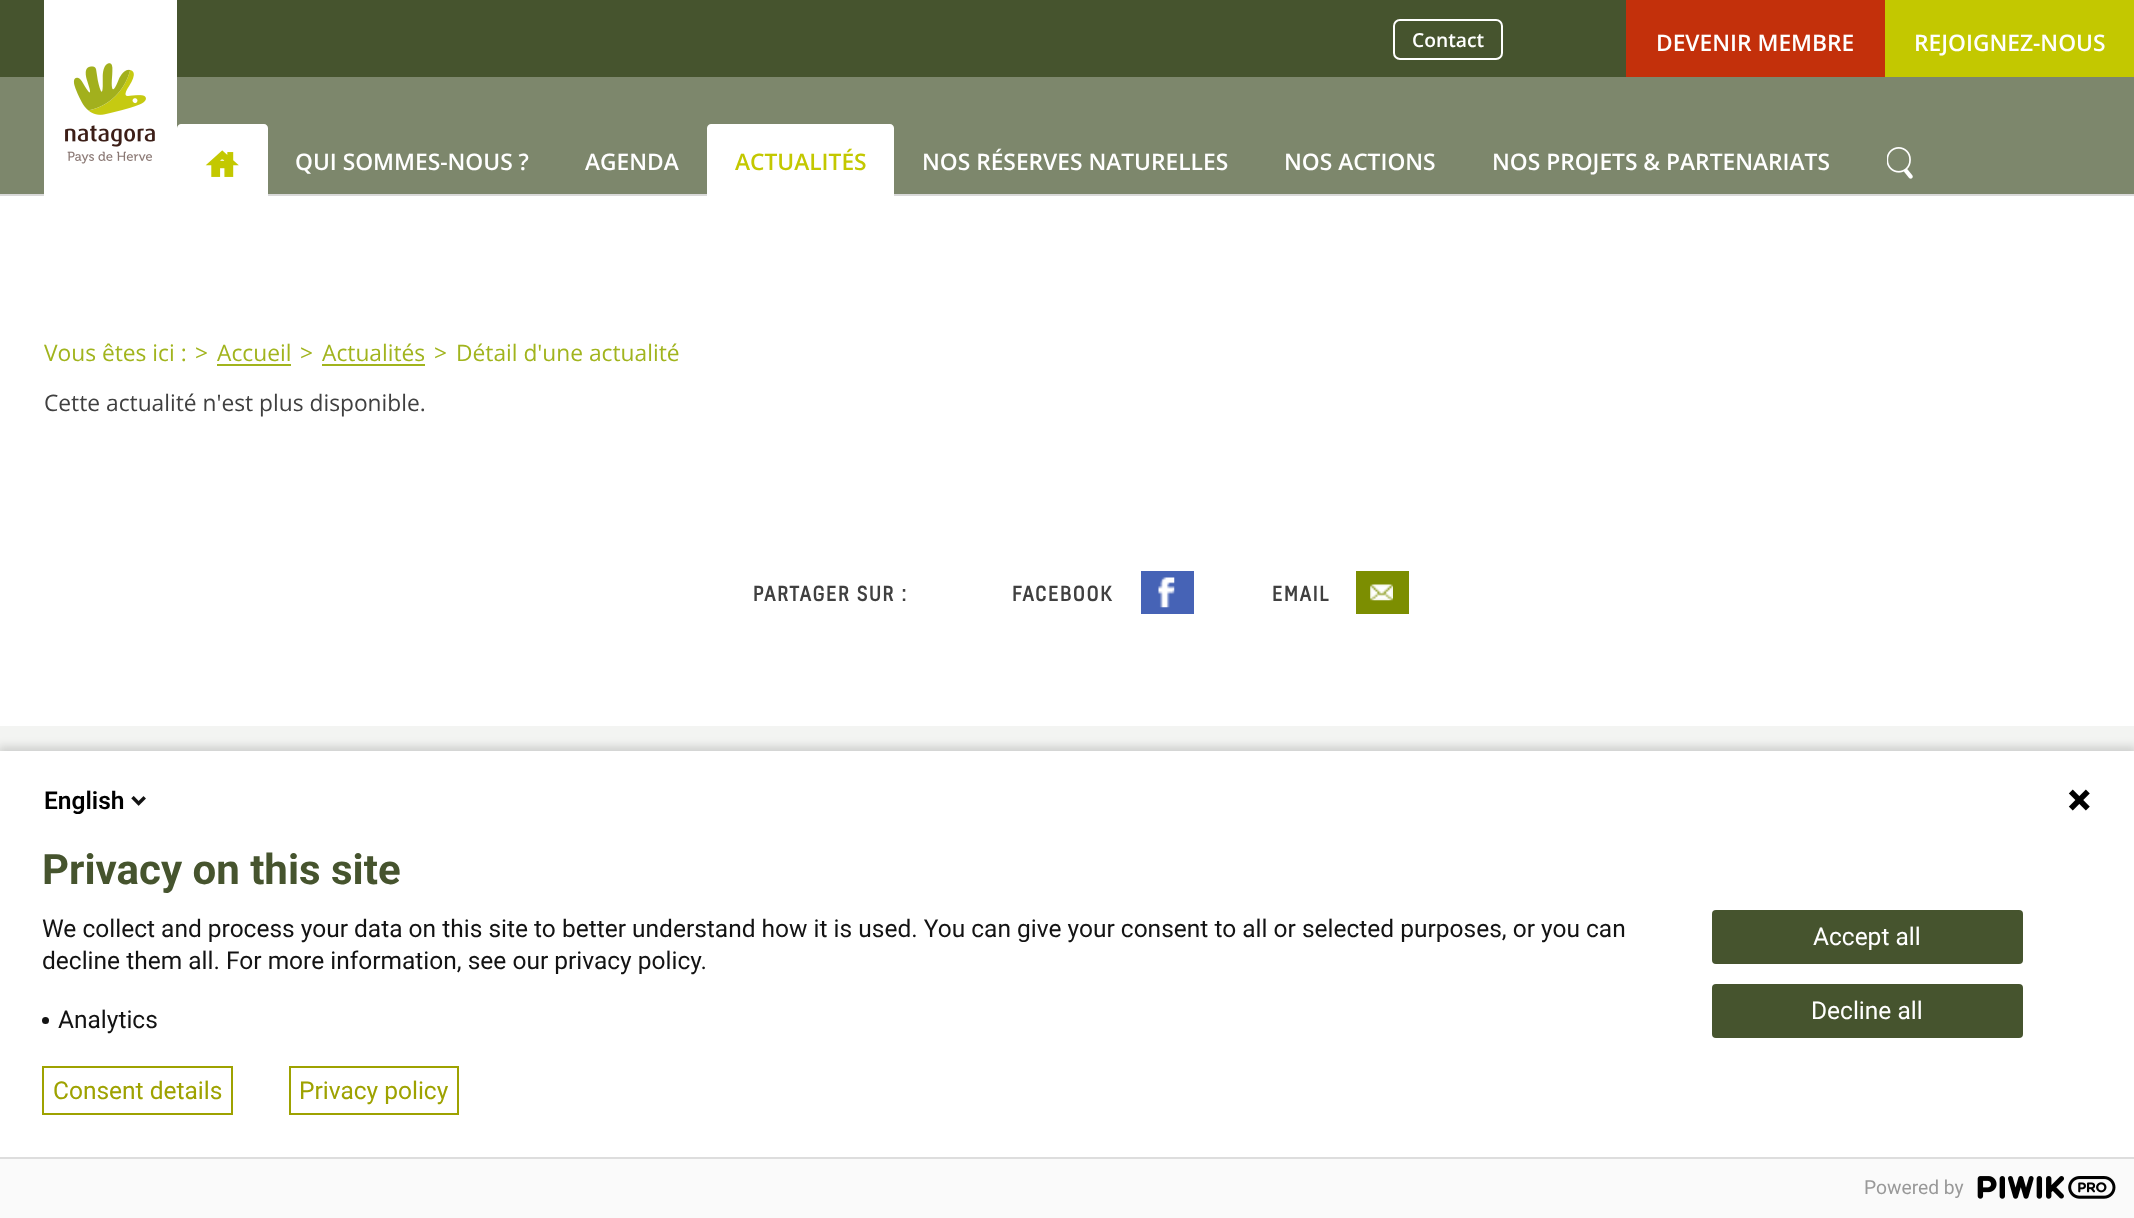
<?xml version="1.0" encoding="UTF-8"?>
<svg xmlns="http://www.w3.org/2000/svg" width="2134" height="1218">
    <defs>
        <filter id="blur1" x="-50%" y="-200%" width="200%" height="500%"><feGaussianBlur stdDeviation="4.5"/></filter>
    </defs>
    <rect width="100%" height="100%" fill="#FFFFFF"/>
    <rect x="0" y="0" width="1626" height="77" fill="#46542E"/>
    <rect x="1394" y="20" width="108" height="39" rx="6" fill="none" stroke="#FFFFFF" stroke-width="2"/>
    <text x="1412" y="47" font-family="Open Sans" font-size="19.25" font-weight="600" fill="#FFFFFF">Contact</text>
    <rect x="1626" y="0" width="259" height="77" fill="#C3300B"/>
    <text x="1656" y="51" font-family="Open Sans" font-size="22.75" font-weight="600" fill="#FFFFFF">DEVENIR MEMBRE</text>
    <rect x="1885" y="0" width="249" height="77" fill="#C3C800"/>
    <text x="1914" y="51" font-family="Open Sans" font-size="22.75" font-weight="600" fill="#FFFFFF">REJOIGNEZ-NOUS</text>
    <rect x="0" y="194" width="2134" height="2" fill="#D9D9D9"/>
    <rect x="0" y="77" width="2134" height="117" fill="#7D876C"/>
    <path d="M 44 -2 H 177 V 215 C 177 221 172 226 166 226 H 55 C 49 226 44 221 44 215 Z" fill="#FFFFFF"/>
    <image x="65" y="63" width="90" height="101" href="img_01.png"/>
    <path d="M 181 124 H 264 C 266 124 268 126 268 128 V 200 H 177 V 128 C 177 126 179 124 181 124 Z" fill="#FFFFFF"/>
    <image x="205" y="150" width="34" height="27" href="img_02.png"/>
    <text x="295" y="170" font-family="Open Sans" font-size="22.75" font-weight="600" fill="#FFFFFF">QUI SOMMES-NOUS ?</text>
    <text x="585" y="170" font-family="Open Sans" font-size="22.75" font-weight="600" fill="#FFFFFF">AGENDA</text>
    <path d="M 711 124 H 890 C 892 124 894 126 894 128 V 198 H 707 V 128 C 707 126 709 124 711 124 Z" fill="#FFFFFF"/>
    <text x="735" y="170" font-family="Open Sans" font-size="22.75" font-weight="600" fill="#C3C800">ACTUALITÉS</text>
    <text x="922" y="170" font-family="Open Sans" font-size="22.75" font-weight="600" fill="#FFFFFF">NOS RÉSERVES NATURELLES</text>
    <text x="1284" y="170" font-family="Open Sans" font-size="22.75" font-weight="600" fill="#FFFFFF">NOS ACTIONS</text>
    <text x="1492" y="170" font-family="Open Sans" font-size="22.75" font-weight="600" fill="#FFFFFF">NOS PROJETS &amp; PARTENARIATS</text>
    <image x="1887" y="147" width="26" height="32" href="img_03.png"/>
    <text x="44" y="361" font-family="Open Sans" font-size="22.75" fill="#A1B41D">Vous êtes ici :</text>
    <text x="195" y="361" font-family="Open Sans" font-size="22.75" fill="#A1B41D">&gt;</text>
    <text x="217" y="361" font-family="Open Sans" font-size="22.75" fill="#A1B41D">Accueil</text>
    <rect x="217" y="364" width="74" height="2" fill="#A1B41D"/>
    <text x="300" y="361" font-family="Open Sans" font-size="22.75" fill="#A1B41D">&gt;</text>
    <text x="322" y="361" font-family="Open Sans" font-size="22.75" fill="#A1B41D">Actualités</text>
    <rect x="322" y="364" width="103" height="2" fill="#A1B41D"/>
    <text x="434" y="361" font-family="Open Sans" font-size="22.75" fill="#A1B41D">&gt;</text>
    <text x="456" y="361" font-family="Open Sans" font-size="22.75" fill="#A1B41D">Détail d'une actualité</text>
    <text x="44" y="411" font-family="Open Sans" font-size="22.75" fill="#404040">Cette actualité n'est plus disponible.</text>
    <text x="753" y="601" font-family="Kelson" font-size="19.25" font-weight="700" letter-spacing="1.75" fill="#404040">PARTAGER SUR :</text>
    <text x="1012" y="601" font-family="Kelson" font-size="19.25" font-weight="700" letter-spacing="1.75" fill="#404040">FACEBOOK</text>
    <rect x="1141" y="571" width="53" height="43" fill="#4663B6"/>
    <image x="1158" y="577" width="17" height="31" href="img_04.png"/>
    <text x="1272" y="601" font-family="Kelson" font-size="19.25" font-weight="700" letter-spacing="1.75" fill="#404040">EMAIL</text>
    <rect x="1356" y="571" width="53" height="43" fill="#7C8E01"/>
    <image x="1370" y="584" width="23" height="17" href="img_05.png"/>
    <rect x="0" y="726" width="2134" height="25" fill="#F3F4F2"/>
    <rect x="-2" y="746" width="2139" height="470" fill="#000000" fill-opacity="0.14" filter="url(#blur1)"/>
    <rect x="0" y="751" width="2134" height="406" fill="#FFFFFF"/>
    <text x="44" y="809" font-family="Roboto" font-size="24.5" font-weight="600" fill="#000000">English</text>
    <image x="131" y="796" width="15" height="10" href="img_06.png"/>
    <image x="2068" y="789" width="22" height="22" href="img_07.png"/>
    <text x="42" y="884" font-family="Roboto" font-size="42" font-weight="700" fill="#46542E">Privacy on this site</text>
    <text font-family="Roboto" font-size="24.5" fill="#131313">
        <tspan x="42" y="937">We collect and process your data on this site to better understand how it is used. You can give your consent to all or selected purposes, or you can</tspan>
        <tspan x="42" y="969">decline them all. For more information, see our privacy policy.</tspan>
    </text>
    <circle cx="45.5" cy="1020.5" r="3.5" fill="#131313"/>
    <text x="58" y="1028" font-family="Roboto" font-size="24.5" fill="#131313">Analytics</text>
    <rect x="1712" y="910" width="311" height="54" rx="4" fill="#46542E"/>
    <text x="1813" y="945" font-family="Roboto" font-size="24.5" fill="#FFFFFF">Accept all</text>
    <rect x="1712" y="984" width="311" height="54" rx="4" fill="#46542E"/>
    <text x="1811" y="1019" font-family="Roboto" font-size="24.5" fill="#FFFFFF">Decline all</text>
    <rect x="43" y="1067" width="189" height="47" fill="none" stroke="#9EA200" stroke-width="2"/>
    <text x="53" y="1099" font-family="Roboto" font-size="24.5" fill="#9EA200">Consent details</text>
    <rect x="290" y="1067" width="168" height="47" fill="none" stroke="#9EA200" stroke-width="2"/>
    <text x="299" y="1099" font-family="Roboto" font-size="24.5" fill="#9EA200">Privacy policy</text>
    <rect x="0" y="1159" width="2134" height="59" fill="#FAFAFA"/>
    <rect x="0" y="1157" width="2134" height="2" fill="#DDDDDD"/>
    <text x="1864" y="1194" font-family="Roboto" font-size="19.25" fill="#999999">Powered by</text>
    <image x="1977" y="1176" width="139" height="23" href="img_08.png"/>
</svg>
